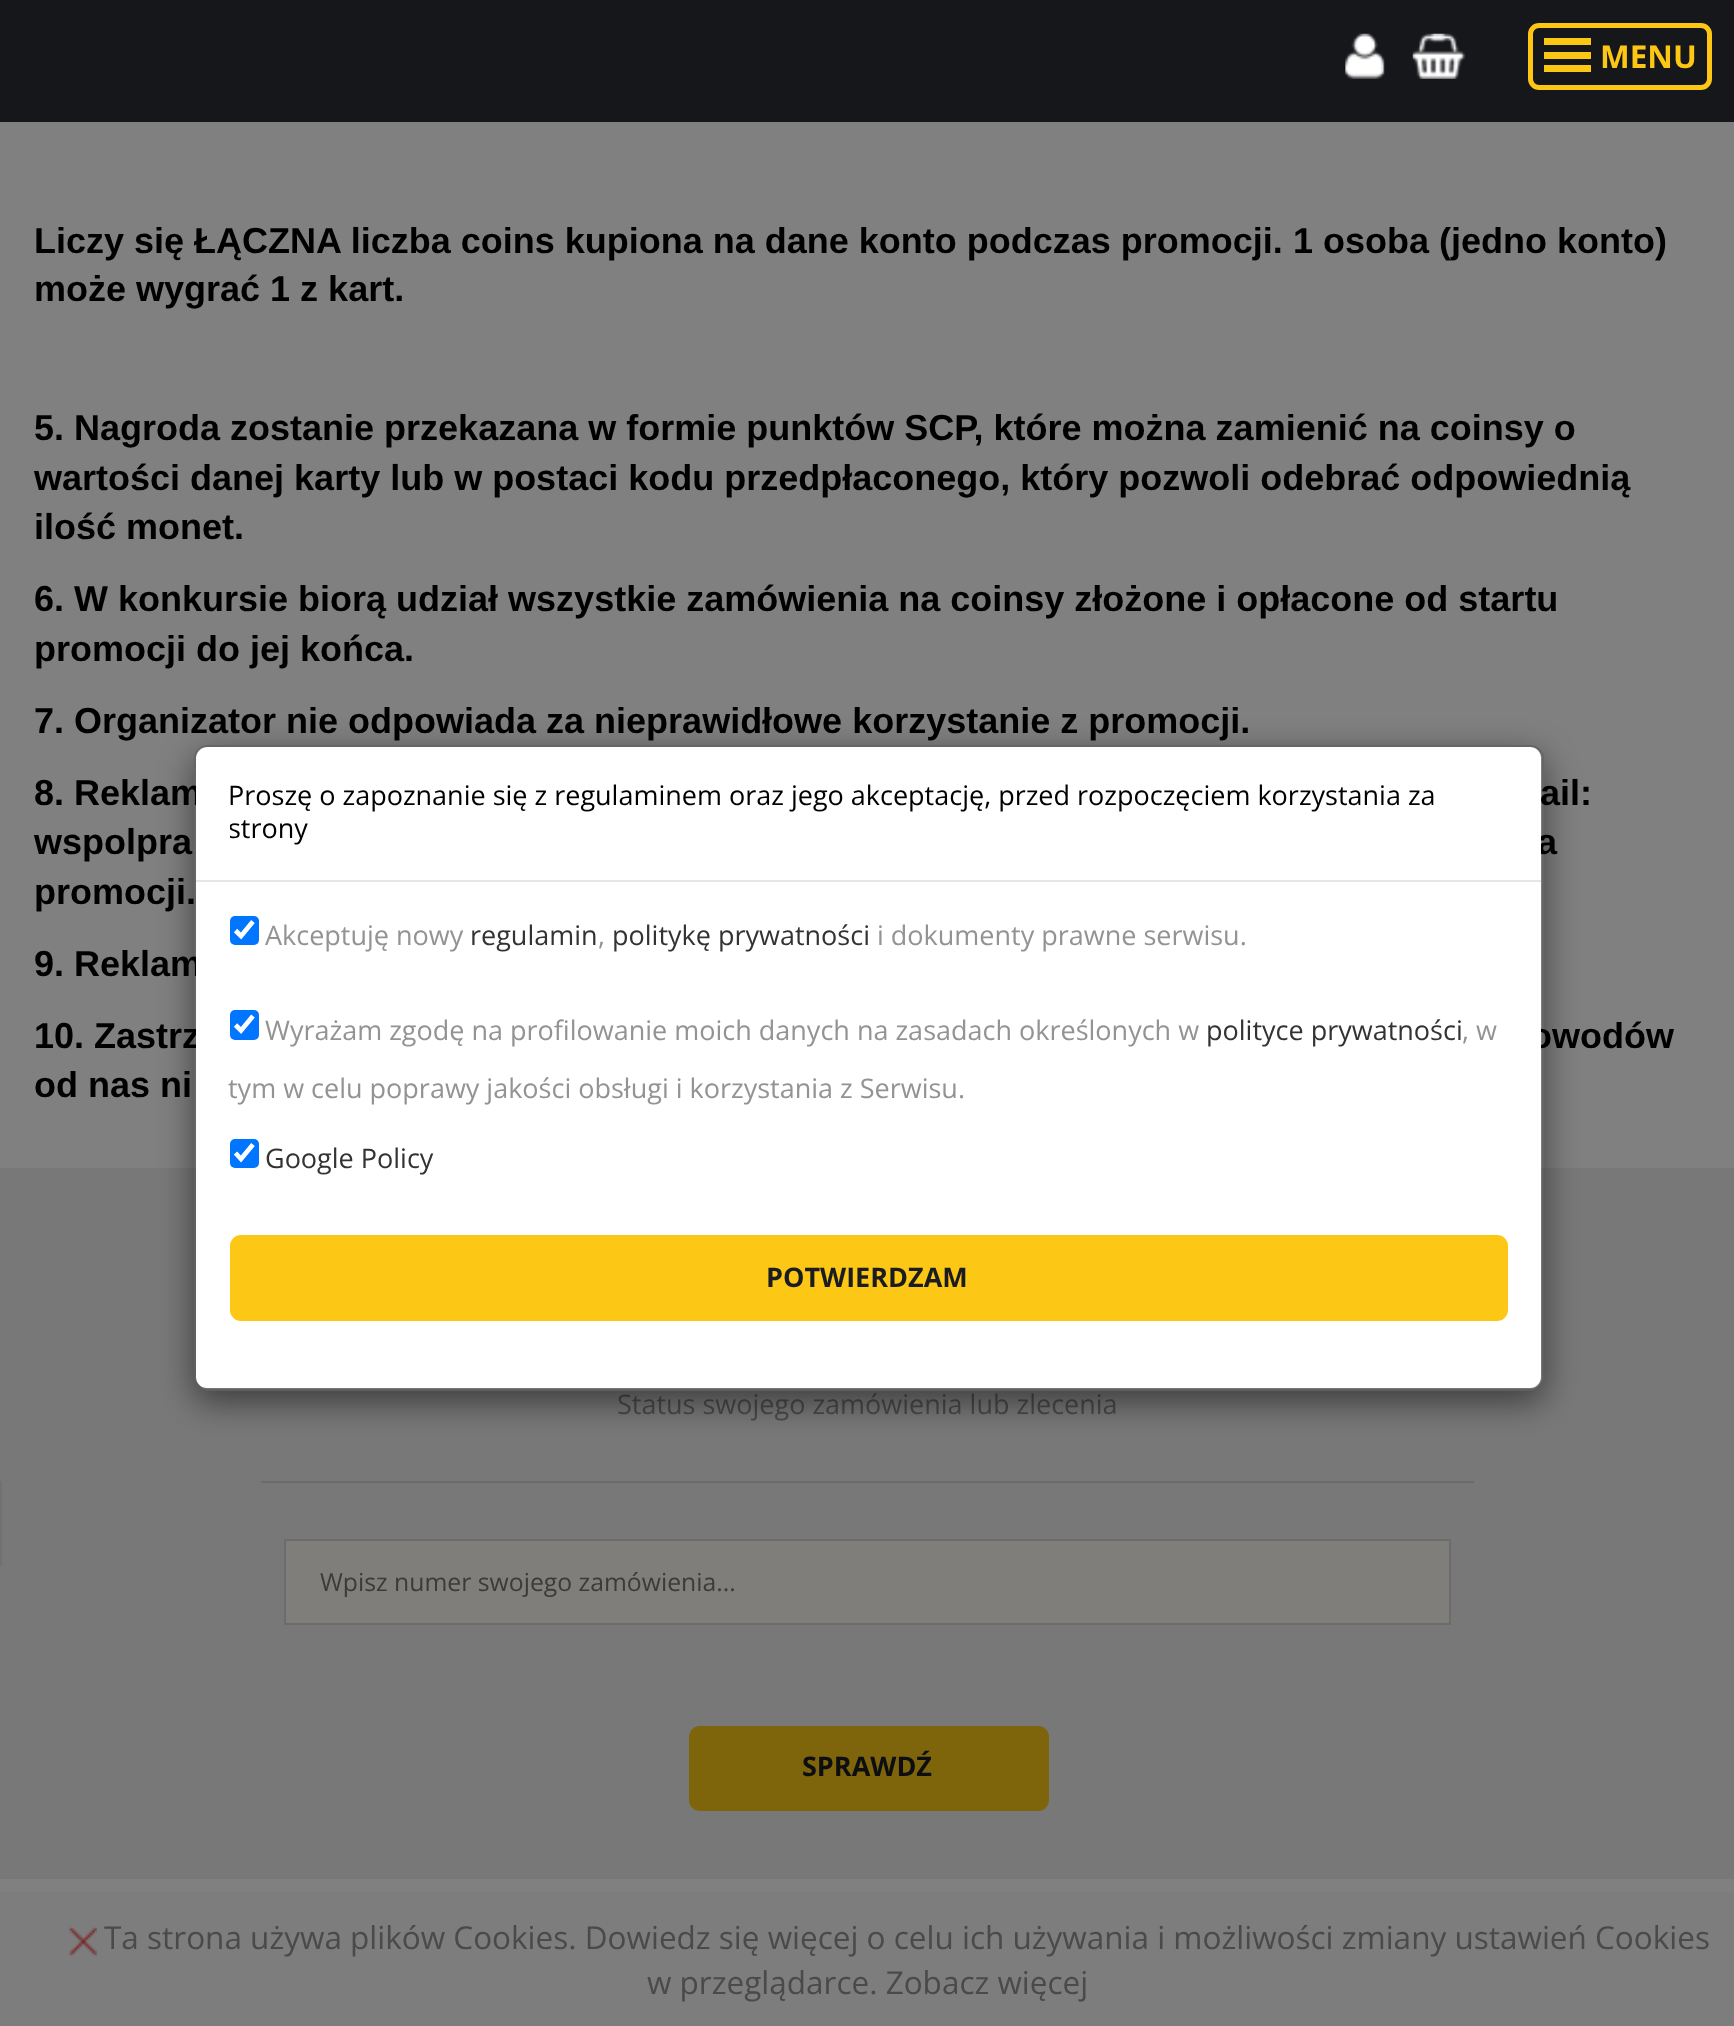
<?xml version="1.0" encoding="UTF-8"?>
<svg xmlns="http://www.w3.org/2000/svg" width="1734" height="2026">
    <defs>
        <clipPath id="clip1"><path d="M 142 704 H 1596 V 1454 H 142 Z M 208 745 H 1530 C 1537.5 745 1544 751.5 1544 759 V 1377 C 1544 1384.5 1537.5 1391 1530 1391 H 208 C 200.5 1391 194 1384.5 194 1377 V 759 C 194 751.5 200.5 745 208 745 Z" clip-rule="evenodd"/></clipPath>
        <filter id="blur1" x="-50%" y="-200%" width="200%" height="500%"><feGaussianBlur stdDeviation="17"/></filter>
        <clipPath id="clip2"><rect x="230" y="781" width="1278" height="65"/></clipPath>
    </defs>
    <rect width="100%" height="100%" fill="#808080"/>
    <rect x="0" y="0" width="1734" height="122" fill="#16171B"/>
    <image x="1345" y="33" width="40" height="46" href="img_01.png"/>
    <image x="1412" y="33" width="54" height="46" href="img_02.png"/>
    <rect x="1530.5" y="25.5" width="179" height="62" rx="8.5" fill="none" stroke="#FBC614" stroke-width="5"/>
    <rect x="1544" y="38" width="47" height="7" fill="#FBC614"/>
    <rect x="1544" y="52" width="47" height="7" fill="#FBC614"/>
    <text x="1600" y="68" font-family="Open Sans" font-size="31.5" font-weight="700" fill="#FBC614">MENU</text>
    <rect x="1544" y="65" width="47" height="7" fill="#FBC614"/>
    <text font-family="Liberation Sans" font-size="36" font-weight="700" fill="#000000">
        <tspan x="34" y="253">Liczy się ŁĄCZNA liczba coins kupiona na dane konto podczas promocji. 1 osoba (jedno konto)</tspan>
        <tspan x="34" y="301">może wygrać 1 z kart.</tspan>
    </text>
    <text font-family="Liberation Sans" font-size="36" font-weight="700" fill="#000000">
        <tspan x="34" y="440">5. Nagroda zostanie przekazana w formie punktów SCP, które można zamienić na coinsy o</tspan>
        <tspan x="34" y="490">wartości danej karty lub w postaci kodu przedpłaconego, który pozwoli odebrać odpowiednią</tspan>
        <tspan x="34" y="539">ilość monet.</tspan>
    </text>
    <text font-family="Liberation Sans" font-size="36" font-weight="700" fill="#000000">
        <tspan x="34" y="611">6. W konkursie biorą udział wszystkie zamówienia na coinsy złożone i opłacone od startu</tspan>
        <tspan x="34" y="661">promocji do jej końca.</tspan>
    </text>
    <text x="34" y="733" font-family="Liberation Sans" font-size="36" font-weight="700" fill="#000000">7. Organizator nie odpowiada za nieprawidłowe korzystanie z promocji.</text>
    <text x="34" y="805" font-family="Liberation Sans" font-size="36" font-weight="700" fill="#000000">8. Reklam</text>
    <text x="1540" y="805" font-family="Liberation Sans" font-size="36" font-weight="700" fill="#000000">ail:</text>
    <text x="34" y="854" font-family="Liberation Sans" font-size="36" font-weight="700" fill="#000000">wspolpra</text>
    <text x="1537" y="854" font-family="Liberation Sans" font-size="36" font-weight="700" fill="#000000">a</text>
    <text x="34" y="904" font-family="Liberation Sans" font-size="36" font-weight="700" fill="#000000">promocji.</text>
    <text x="34" y="976" font-family="Liberation Sans" font-size="36" font-weight="700" fill="#000000">9. Reklam</text>
    <text x="34" y="1048" font-family="Liberation Sans" font-size="36" font-weight="700" fill="#000000">10. Zastrz</text>
    <text x="1530" y="1048" font-family="Liberation Sans" font-size="36" font-weight="700" fill="#000000">owodów</text>
    <text x="34" y="1097" font-family="Liberation Sans" font-size="36" font-weight="700" fill="#000000">od nas ni</text>
    <rect x="0" y="1168" width="1734" height="711" fill="#787878"/>
    <text x="617" y="1414" font-family="Open Sans" font-size="27" fill="#4A4A4A">Status swojego zamówienia lub zlecenia</text>
    <rect x="0" y="1481" width="2" height="85" fill="#727171"/>
    <rect x="261" y="1481" width="1213" height="2" fill="#6C6A6A"/>
    <rect x="285" y="1540" width="1165" height="84" fill="#807E7B" stroke="#6C6C6C" stroke-width="2"/>
    <text x="320" y="1591" font-family="Open Sans" font-size="24.75" fill="#3B3B3B">Wpisz numer swojego zamówienia...</text>
    <rect x="689" y="1726" width="360" height="85" rx="11" fill="#7E640B"/>
    <text x="802" y="1776" font-family="Open Sans" font-size="27" font-weight="700" fill="#0D0E11">SPRAWDŹ</text>
    <g clip-path="url(#clip1)">
        <rect x="194" y="756" width="1350" height="646" rx="14" fill="#000000" fill-opacity="0.5" filter="url(#blur1)"/>
    </g>
    <rect x="196" y="747" width="1345" height="641" rx="11" fill="#FFFFFF"/>
    <rect x="195" y="746" width="1348" height="644" rx="13" fill="none" stroke="#000000" stroke-opacity="0.2" stroke-width="2"/>
    <text x="228" y="805" font-family="Open Sans" font-size="27" fill="#000000">Proszę o zapoznanie się z regulaminem oraz jego akceptację, przed rozpoczęciem korzystania za</text>
    <g clip-path="url(#clip2)">
        <text x="228" y="838" font-family="Open Sans" font-size="27" fill="#000000">strony</text>
    </g>
    <rect x="196" y="880" width="1345" height="2" fill="#E5E5E5"/>
    <rect x="230" y="916" width="29" height="29" rx="5" fill="#0075FF"/>
    <path d="M 235.5 930.5 L 241 936 L 253 921.5" fill="none" stroke="#FFFFFF" stroke-width="4.7"/>
    <text x="265" y="945" font-family="Open Sans" font-size="27" fill="#939393">Akceptuję nowy</text>
    <text x="470" y="945" font-family="Open Sans" font-size="27" fill="#333333">regulamin</text>
    <text x="598" y="945" font-family="Open Sans" font-size="27" fill="#939393">,</text>
    <text x="612" y="945" font-family="Open Sans" font-size="27" fill="#333333">politykę prywatności</text>
    <text x="877" y="945" font-family="Open Sans" font-size="27" fill="#939393">i dokumenty prawne serwisu.</text>
    <rect x="230" y="1010" width="29" height="30" rx="5" fill="#0075FF"/>
    <path d="M 235.5 1025 L 241 1030.5 L 253 1016" fill="none" stroke="#FFFFFF" stroke-width="4.7"/>
    <text x="265" y="1040" font-family="Open Sans" font-size="27" fill="#939393">Wyrażam zgodę na profilowanie moich danych na zasadach określonych w</text>
    <text x="1206" y="1040" font-family="Open Sans" font-size="27" fill="#333333">polityce prywatności</text>
    <text x="1462" y="1040" font-family="Open Sans" font-size="27" fill="#939393">, w</text>
    <text x="228" y="1098" font-family="Open Sans" font-size="27" fill="#939393">tym w celu poprawy jakości obsługi i korzystania z Serwisu.</text>
    <rect x="230" y="1139" width="29" height="29" rx="5" fill="#0075FF"/>
    <path d="M 235.5 1153 L 241 1159 L 253 1144.5" fill="none" stroke="#FFFFFF" stroke-width="4.7"/>
    <text x="265" y="1168" font-family="Open Sans" font-size="27" fill="#333333">Google Policy</text>
    <rect x="230" y="1235" width="1278" height="86" rx="11" fill="#FCC715"/>
    <text x="766" y="1287" font-family="Open Sans" font-size="27" font-weight="700" fill="#1A1C22">POTWIERDZAM</text>
    <rect x="0" y="1892" width="1734" height="134" fill="#7D7D7D"/>
    <image x="69" y="1927" width="28" height="29" href="img_03.png"/>
    <text x="104" y="1949" font-family="Open Sans" font-size="31.5" fill="#4A4A4A">Ta strona używa plików Cookies. Dowiedz się więcej o celu ich używania i możliwości zmiany ustawień Cookies</text>
    <text x="647" y="1994" font-family="Open Sans" font-size="31.5" fill="#4A4A4A">w przeglądarce. Zobacz więcej</text>
</svg>
